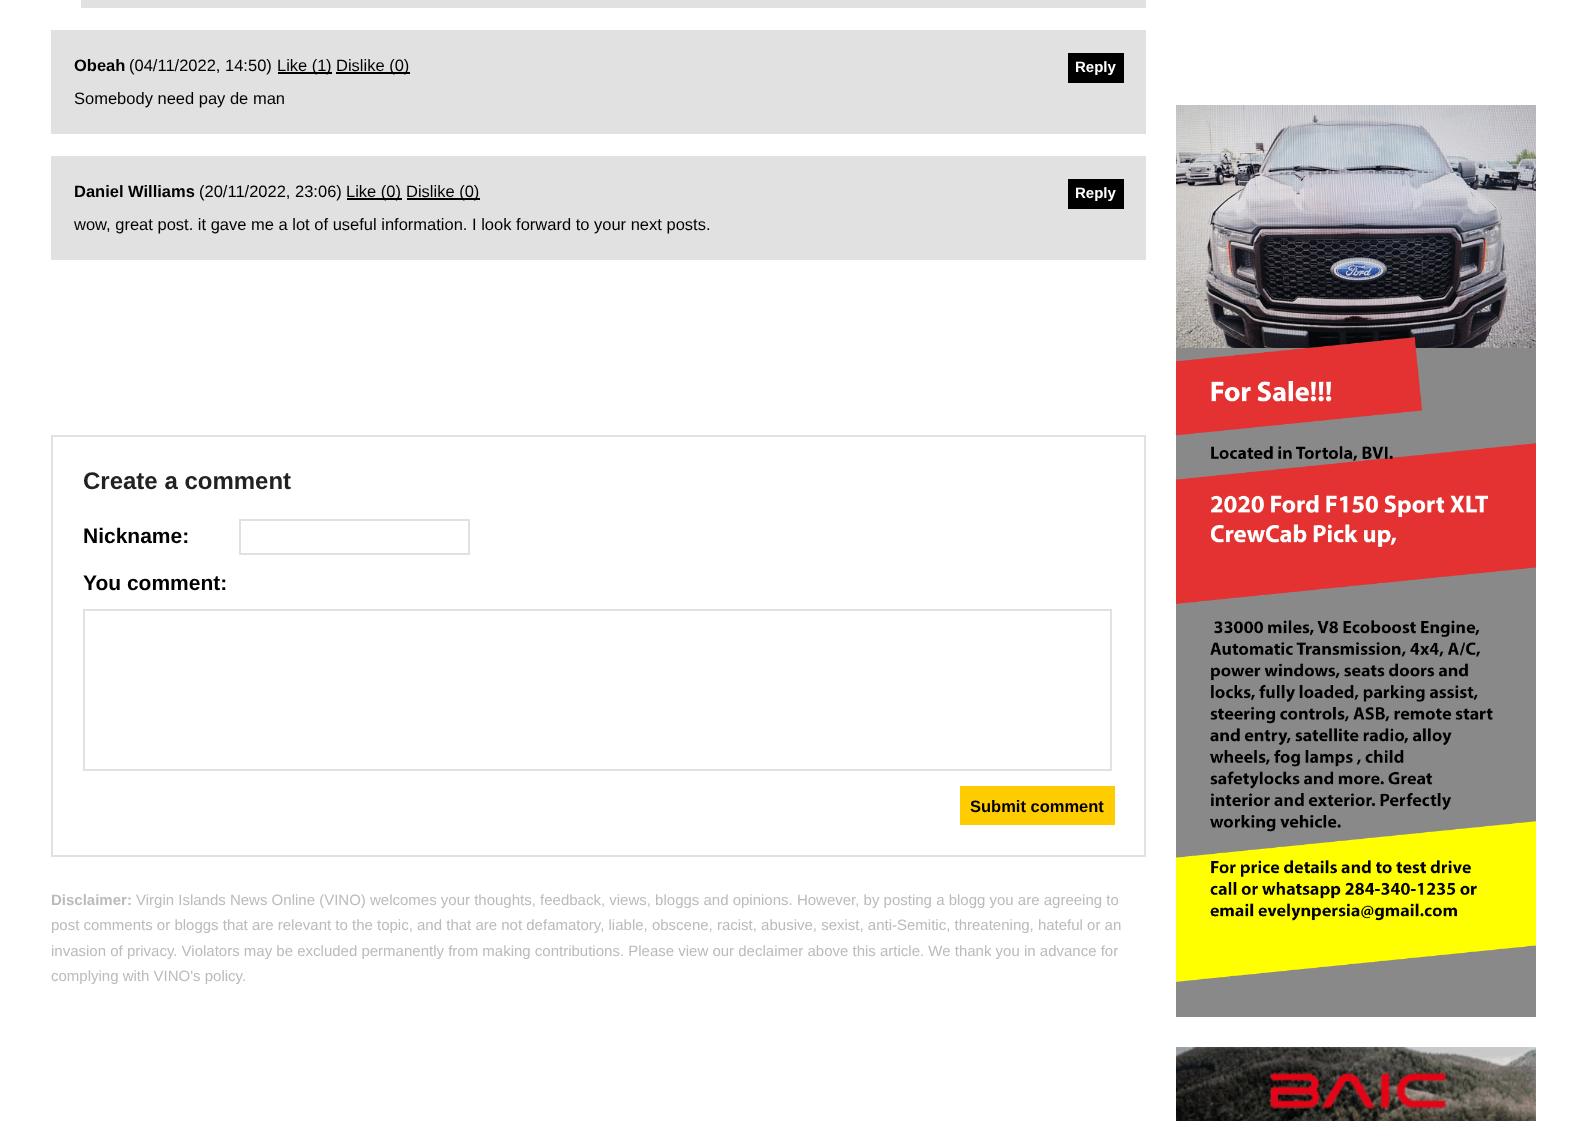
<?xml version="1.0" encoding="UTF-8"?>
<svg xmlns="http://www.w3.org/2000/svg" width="1586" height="1121">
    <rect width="100%" height="100%" fill="#FFFFFF"/>
    <rect x="81" y="0" width="1065" height="8" fill="#E1E1E1"/>
    <rect x="51" y="30" width="1095" height="104" fill="#E1E1E1"/>
    <text x="74" y="71" font-family="Liberation Sans" font-size="16.5" font-weight="700" fill="#000000">Obeah</text>
    <text x="129" y="71" font-family="Liberation Sans" font-size="16.5" fill="#000000">(04/11/2022, 14:50)</text>
    <rect x="278" y="72" width="39" height="2" fill="#000000"/>
    <text x="277" y="71" font-family="Liberation Sans" font-size="16.5" fill="#000000">Like (1</text>
    <rect x="317" y="72" width="15" height="2" fill="#000000"/>
    <text x="326" y="71" font-family="Liberation Sans" font-size="16.5" fill="#000000">)</text>
    <rect x="336" y="72" width="74" height="2" fill="#000000"/>
    <text x="336" y="71" font-family="Liberation Sans" font-size="16.5" fill="#000000">Dislike (0)</text>
    <rect x="1068" y="53" width="56" height="30" fill="#000000"/>
    <text x="1075" y="72" font-family="Liberation Sans" font-size="15" font-weight="700" fill="#FFFFFF">Reply</text>
    <text x="74" y="104" font-family="Liberation Sans" font-size="16.5" fill="#000000">Somebody need pay de man</text>
    <rect x="51" y="156" width="1095" height="104" fill="#E1E1E1"/>
    <text x="74" y="197" font-family="Liberation Sans" font-size="16.5" font-weight="700" fill="#000000">Daniel Williams</text>
    <text x="199" y="197" font-family="Liberation Sans" font-size="16.5" fill="#000000">(20/11/2022, 23:06)</text>
    <rect x="347" y="198" width="55" height="2" fill="#000000"/>
    <text x="346" y="197" font-family="Liberation Sans" font-size="16.5" fill="#000000">Like (0)</text>
    <rect x="407" y="198" width="73" height="2" fill="#000000"/>
    <text x="406" y="197" font-family="Liberation Sans" font-size="16.5" fill="#000000">Dislike (0)</text>
    <rect x="1068" y="179" width="56" height="30" fill="#000000"/>
    <text x="1075" y="198" font-family="Liberation Sans" font-size="15" font-weight="700" fill="#FFFFFF">Reply</text>
    <text x="74" y="230" font-family="Liberation Sans" font-size="16.5" fill="#000000">wow, great post. it gave me a lot of useful information. I look forward to your next posts.</text>
    <rect x="52" y="436" width="1093" height="420" fill="none" stroke="#E1E1E1" stroke-width="2"/>
    <text x="83" y="489" font-family="Liberation Sans" font-size="24" font-weight="700" fill="#222222">Create a comment</text>
    <text x="83" y="543" font-family="Liberation Sans" font-size="21" font-weight="700" fill="#000000">Nickname:</text>
    <rect x="240" y="520" width="229" height="34" fill="none" stroke="#E1E1E1" stroke-width="2"/>
    <text x="83" y="590" font-family="Liberation Sans" font-size="21" font-weight="700" fill="#000000">You comment:</text>
    <rect x="84" y="610" width="1027" height="160" fill="none" stroke="#E1E1E1" stroke-width="2"/>
    <rect x="960" y="786" width="155" height="39" fill="#FFCC02"/>
    <text x="970" y="812" font-family="Liberation Sans" font-size="16.5" font-weight="700" fill="#000000">Submit comment</text>
    <text x="51" y="905" font-family="Liberation Sans" font-size="15" font-weight="700" fill="#BBBBBB">Disclaimer:</text>
    <text x="136" y="905" font-family="Liberation Sans" font-size="15" fill="#BBBBBB">Virgin Islands News Online (VINO) welcomes your thoughts, feedback, views, bloggs and opinions. However, by posting a blogg you are agreeing to</text>
    <text font-family="Liberation Sans" font-size="15" fill="#BBBBBB">
        <tspan x="51" y="930">post comments or bloggs that are relevant to the topic, and that are not defamatory, liable, obscene, racist, abusive, sexist, anti-Semitic, threatening, hateful or an</tspan>
        <tspan x="51" y="956">invasion of privacy. Violators may be excluded permanently from making contributions. Please view our declaimer above this article. We thank you in advance for</tspan>
        <tspan x="51" y="981">complying with VINO's policy.</tspan>
    </text>
    <image x="1176" y="105" width="360" height="912" href="img_01.png"/>
    <image x="1176" y="1047" width="360" height="74" href="img_02.png"/>
</svg>
